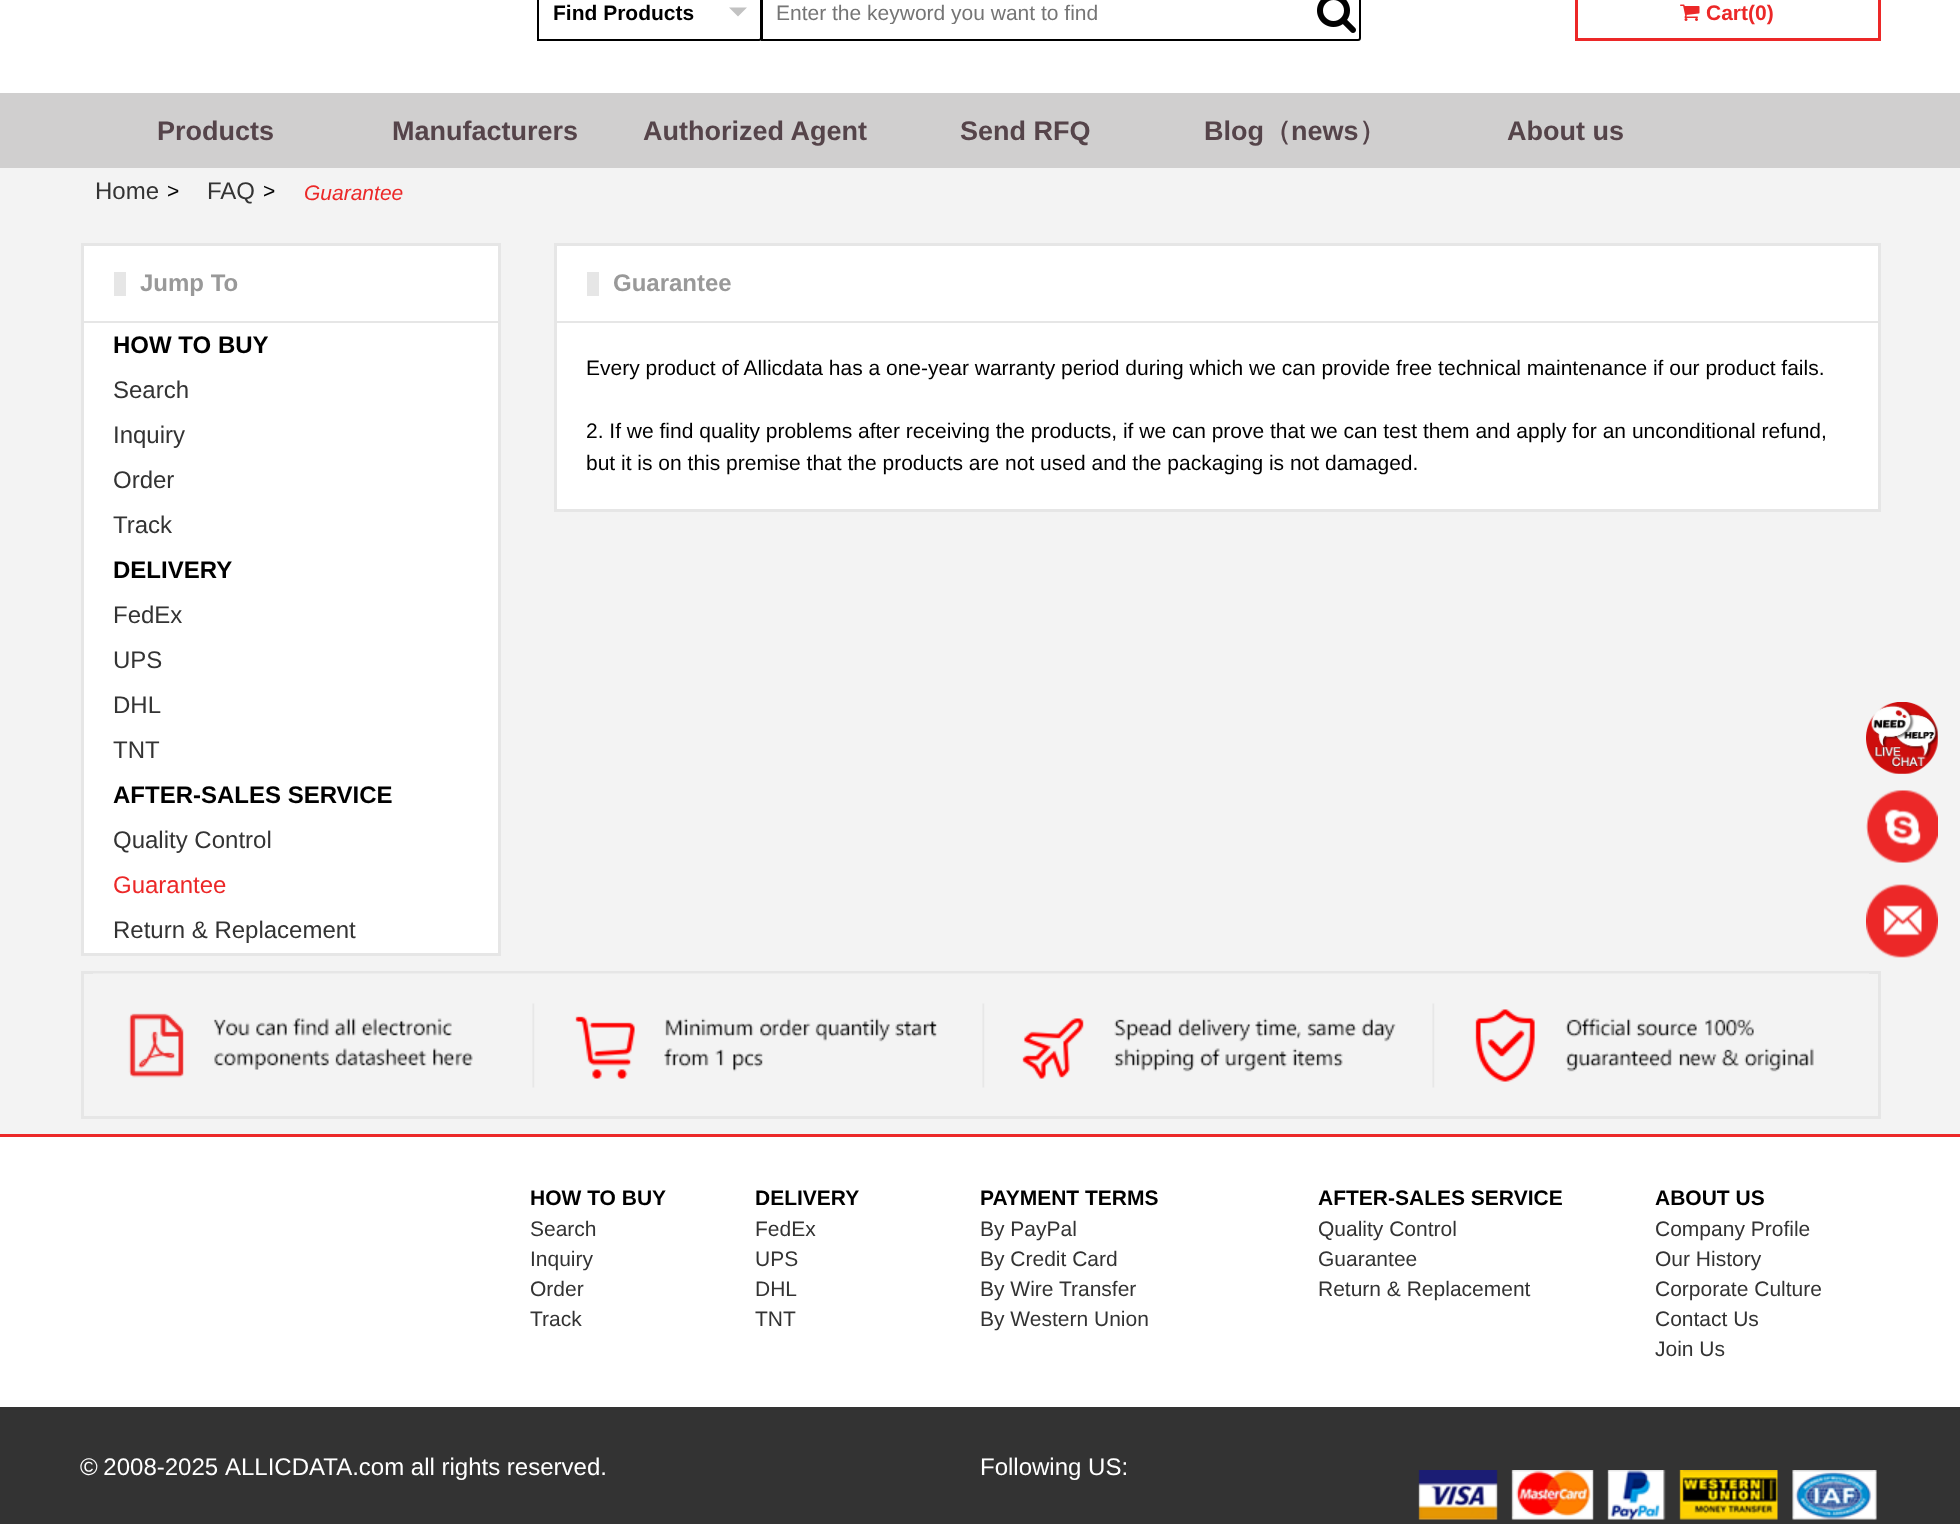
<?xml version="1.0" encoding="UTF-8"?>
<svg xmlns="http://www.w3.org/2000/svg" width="1960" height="1524">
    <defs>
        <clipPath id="clip1"><rect x="777" y="0" width="582" height="24"/></clipPath>
    </defs>
    <rect width="100%" height="100%" fill="#FFFFFF"/>
    <path d="M 538 -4 H 759 C 760 -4 761 -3 761 -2 V 38 C 761 39 760 40 759 40 H 538 Z" fill="none" stroke="#000000" stroke-width="2"/>
    <text x="553" y="20" font-family="Liberation Sans" font-size="21" font-weight="700" fill="#000000">Find Products</text>
    <path d="M 729 7.5 H 747 L 738 16.5 Z" fill="#C2C2C2"/>
    <path d="M 762 -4 H 1358 C 1359 -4 1360 -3 1360 -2 V 38 C 1360 39 1359 40 1358 40 H 762 Z" fill="#FFFFFF" stroke="#000000" stroke-width="2"/>
    <g clip-path="url(#clip1)">
        <text x="776" y="20" font-family="Liberation Sans" font-size="21" fill="#757575">Enter the keyword you want to find</text>
    </g>
    <image x="1317" y="0" width="39" height="33" href="img_01.png"/>
    <rect x="1576.5" y="-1.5" width="303" height="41" fill="none" stroke="#EC2828" stroke-width="3"/>
    <image x="1680" y="4" width="20" height="17" href="img_02.png"/>
    <text x="1706" y="20" font-family="Liberation Sans" font-size="21" font-weight="700" fill="#EC2828">Cart(0)</text>
    <rect x="0" y="93" width="1960" height="75" fill="#D0CFCF"/>
    <text x="157" y="140" font-family="Liberation Sans" font-size="27" font-weight="700" fill="#55444A">Products</text>
    <text x="392" y="140" font-family="Liberation Sans" font-size="27" font-weight="700" fill="#55444A">Manufacturers</text>
    <text x="643" y="140" font-family="Liberation Sans" font-size="27" font-weight="700" fill="#55444A">Authorized Agent</text>
    <text x="960" y="140" font-family="Liberation Sans" font-size="27" font-weight="700" fill="#55444A">Send RFQ</text>
    <text x="1204" y="140" font-family="Liberation Sans" font-size="27" font-weight="700" fill="#55444A">Blog</text>
    <text x="1264" y="140" font-family="WenQuanYi Zen Hei" font-size="27" font-weight="700" fill="#55444A">（</text>
    <text x="1291" y="140" font-family="Liberation Sans" font-size="27" font-weight="700" fill="#55444A">news</text>
    <text x="1359" y="140" font-family="WenQuanYi Zen Hei" font-size="27" font-weight="700" fill="#55444A">）</text>
    <text x="1507" y="140" font-family="Liberation Sans" font-size="27" font-weight="700" fill="#55444A">About us</text>
    <rect x="0" y="168" width="1960" height="966" fill="#F3F3F3"/>
    <text x="95" y="199" font-family="Liberation Sans" font-size="24" fill="#333333">Home</text>
    <text x="167" y="198" font-family="Liberation Sans" font-size="21" fill="#000000">&gt;</text>
    <text x="207" y="199" font-family="Liberation Sans" font-size="24" fill="#333333">FAQ</text>
    <text x="263" y="198" font-family="Liberation Sans" font-size="21" fill="#000000">&gt;</text>
    <text x="304" y="200" font-family="Liberation Sans" font-size="21" font-style="italic" fill="#EC2828">Guarantee</text>
    <rect x="82.5" y="244.5" width="417" height="710" fill="#FFFFFF" stroke="#E6E6E6" stroke-width="3"/>
    <rect x="84" y="321" width="414" height="2" fill="#E6E6E6"/>
    <rect x="114" y="272" width="12" height="24" fill="#E6E6E6"/>
    <text x="140" y="291" font-family="Liberation Sans" font-size="24" font-weight="700" fill="#999999">Jump To</text>
    <text x="113" y="353" font-family="Liberation Sans" font-size="24" font-weight="700" fill="#000000">HOW TO BUY</text>
    <text font-family="Liberation Sans" font-size="24" fill="#333333">
        <tspan x="113" y="398">Search</tspan>
        <tspan x="113" y="443">Inquiry</tspan>
        <tspan x="113" y="488">Order</tspan>
        <tspan x="113" y="533">Track</tspan>
    </text>
    <text x="113" y="578" font-family="Liberation Sans" font-size="24" font-weight="700" fill="#000000">DELIVERY</text>
    <text font-family="Liberation Sans" font-size="24" fill="#333333">
        <tspan x="113" y="623">FedEx</tspan>
        <tspan x="113" y="668">UPS</tspan>
        <tspan x="113" y="713">DHL</tspan>
        <tspan x="113" y="758">TNT</tspan>
    </text>
    <text x="113" y="803" font-family="Liberation Sans" font-size="24" font-weight="700" fill="#000000">AFTER-SALES SERVICE</text>
    <text x="113" y="848" font-family="Liberation Sans" font-size="24" fill="#333333">Quality Control</text>
    <text x="113" y="893" font-family="Liberation Sans" font-size="24" fill="#EC2828">Guarantee</text>
    <text x="113" y="938" font-family="Liberation Sans" font-size="24" fill="#333333">Return &amp; Replacement</text>
    <rect x="555.5" y="244.5" width="1324" height="266" fill="#FFFFFF" stroke="#E6E6E6" stroke-width="3"/>
    <rect x="557" y="321" width="1321" height="2" fill="#E6E6E6"/>
    <rect x="587" y="272" width="12" height="24" fill="#E6E6E6"/>
    <text x="613" y="291" font-family="Liberation Sans" font-size="24" font-weight="700" fill="#999999">Guarantee</text>
    <text x="586" y="375" font-family="Liberation Sans" font-size="21" fill="#000000">Every product of Allicdata has a one-year warranty period during which we can provide free technical maintenance if our product fails.</text>
    <text font-family="Liberation Sans" font-size="21" fill="#000000">
        <tspan x="586" y="438">2. If we find quality problems after receiving the products, if we can prove that we can test them and apply for an unconditional refund,</tspan>
        <tspan x="586" y="470">but it is on this premise that the products are not used and the packaging is not damaged.</tspan>
    </text>
    <image x="1866" y="702" width="72" height="72" href="img_03.png"/>
    <image x="1866" y="790" width="72" height="73" href="img_04.png"/>
    <image x="1866" y="884" width="72" height="74" href="img_05.png"/>
    <rect x="82.5" y="972.5" width="1797" height="145" fill="none" stroke="#E6E6E6" stroke-width="3"/>
    <image x="93" y="973" width="1776" height="115" href="img_06.png"/>
    <rect x="0" y="1134" width="1960" height="3" fill="#EC2828"/>
    <text x="530" y="1205" font-family="Liberation Sans" font-size="21" font-weight="700" fill="#000000">HOW TO BUY</text>
    <text font-family="Liberation Sans" font-size="21" fill="#333333">
        <tspan x="530" y="1236">Search</tspan>
        <tspan x="530" y="1266">Inquiry</tspan>
        <tspan x="530" y="1296">Order</tspan>
        <tspan x="530" y="1326">Track</tspan>
    </text>
    <text x="755" y="1205" font-family="Liberation Sans" font-size="21" font-weight="700" fill="#000000">DELIVERY</text>
    <text font-family="Liberation Sans" font-size="21" fill="#333333">
        <tspan x="755" y="1236">FedEx</tspan>
        <tspan x="755" y="1266">UPS</tspan>
        <tspan x="755" y="1296">DHL</tspan>
        <tspan x="755" y="1326">TNT</tspan>
    </text>
    <text x="980" y="1205" font-family="Liberation Sans" font-size="21" font-weight="700" fill="#000000">PAYMENT TERMS</text>
    <text font-family="Liberation Sans" font-size="21" fill="#333333">
        <tspan x="980" y="1236">By PayPal</tspan>
        <tspan x="980" y="1266">By Credit Card</tspan>
        <tspan x="980" y="1296">By Wire Transfer</tspan>
        <tspan x="980" y="1326">By Western Union</tspan>
    </text>
    <text x="1318" y="1205" font-family="Liberation Sans" font-size="21" font-weight="700" fill="#000000">AFTER-SALES SERVICE</text>
    <text font-family="Liberation Sans" font-size="21" fill="#333333">
        <tspan x="1318" y="1236">Quality Control</tspan>
        <tspan x="1318" y="1266">Guarantee</tspan>
        <tspan x="1318" y="1296">Return &amp; Replacement</tspan>
    </text>
    <text x="1655" y="1205" font-family="Liberation Sans" font-size="21" font-weight="700" fill="#000000">ABOUT US</text>
    <text font-family="Liberation Sans" font-size="21" fill="#333333">
        <tspan x="1655" y="1236">Company Profile</tspan>
        <tspan x="1655" y="1266">Our History</tspan>
        <tspan x="1655" y="1296">Corporate Culture</tspan>
        <tspan x="1655" y="1326">Contact Us</tspan>
        <tspan x="1655" y="1356">Join Us</tspan>
    </text>
    <rect x="0" y="1407" width="1960" height="117" fill="#333333"/>
    <text x="80" y="1475" word-spacing="-1" font-family="Liberation Sans" font-size="24" fill="#FFFFFF">© 2008-2025</text>
    <text x="225" y="1475" font-family="Liberation Sans" font-size="24" fill="#FFFFFF">ALLICDATA.com all rights reserved.</text>
    <text x="980" y="1475" font-family="Liberation Sans" font-size="24" fill="#FFFFFF">Following US:</text>
    <image x="1418" y="1470" width="459" height="50" href="img_07.png"/>
</svg>
